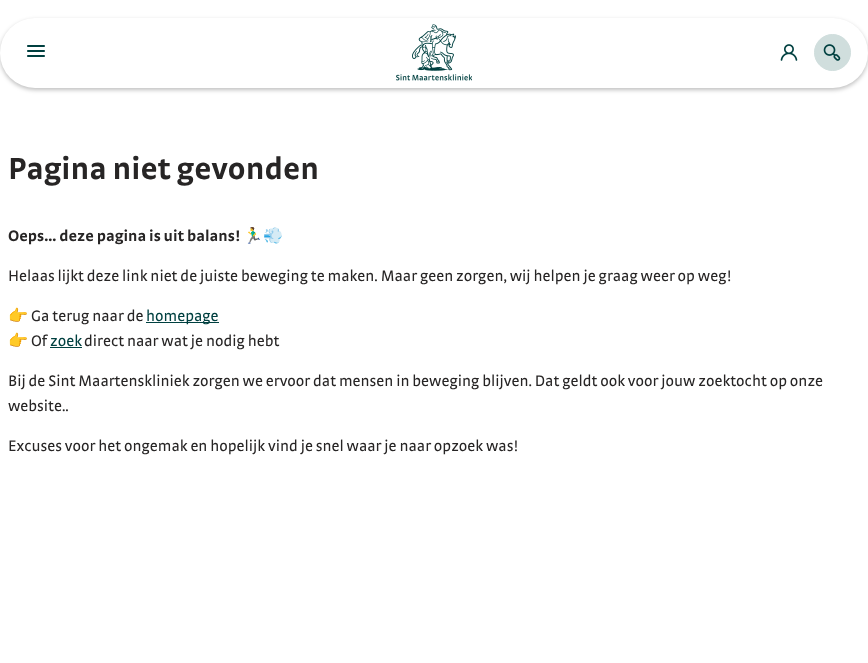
<?xml version="1.0" encoding="UTF-8"?>
<svg xmlns="http://www.w3.org/2000/svg" width="868" height="663">
    <defs>
        <filter id="blur1" x="-50%" y="-200%" width="200%" height="500%"><feGaussianBlur stdDeviation="2"/></filter>
    </defs>
    <rect width="100%" height="100%" fill="#FFFFFF"/>
    <rect x="0" y="20" width="868" height="70" rx="35" fill="#000000" fill-opacity="0.25" filter="url(#blur1)"/>
    <rect x="0" y="18" width="868" height="70" rx="35" fill="#FFFFFF"/>
    <image x="27" y="45" width="18" height="12" href="img_01.png"/>
    <image x="412" y="24" width="44" height="47" href="img_02.png"/>
    <image x="396" y="74" width="76" height="7" href="img_03.png"/>
    <image x="780" y="44" width="18" height="17" href="img_04.png"/>
    <circle cx="832.5" cy="52.5" r="18" fill="#D0DEDD" stroke="#D0DEDD"/>
    <image x="823" y="44" width="18" height="17" href="img_05.png"/>
    <text x="8" y="179" font-family="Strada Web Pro" font-size="32" font-weight="700" fill="#272525">Pagina niet gevonden</text>
    <text x="8" y="241" font-family="Strada Web Pro" font-size="16" font-weight="700" fill="#272525">Oeps... deze pagina is uit balans!</text>
    <text x="243" y="241" font-family="Noto Color Emoji" font-size="16" fill="#272525">🏃‍♂️💨</text>
    <text x="8" y="281" font-family="Strada Web Pro" font-size="16" fill="#272525">Helaas lijkt deze link niet de juiste beweging te maken. Maar geen zorgen, wij helpen je graag weer op weg!</text>
    <text x="8" y="321" font-family="Noto Color Emoji" font-size="16" fill="#272525">👉</text>
    <text x="31" y="321" font-family="Strada Web Pro" font-size="16" fill="#272525">Ga terug naar de</text>
    <rect x="146" y="322" width="73" height="1" fill="#004040"/>
    <text x="146" y="321" font-family="Strada Web Pro" font-size="16" fill="#004040">homepage</text>
    <text x="8" y="346" font-family="Noto Color Emoji" font-size="16" fill="#272525">👉</text>
    <text x="31" y="346" font-family="Strada Web Pro" font-size="16" fill="#272525">Of</text>
    <text x="50" y="346" font-family="Strada Web Pro" font-size="16" fill="#004040">zoek</text>
    <rect x="50" y="347" width="32" height="1" fill="#004040"/>
    <text x="84" y="346" font-family="Strada Web Pro" font-size="16" fill="#272525">direct naar wat je nodig hebt</text>
    <text font-family="Strada Web Pro" font-size="16" fill="#272525">
        <tspan x="8" y="386">Bij de Sint Maartenskliniek zorgen we ervoor dat mensen in beweging blijven. Dat geldt ook voor jouw zoektocht op onze</tspan>
        <tspan x="8" y="411">website..</tspan>
    </text>
    <text x="8" y="451" font-family="Strada Web Pro" font-size="16" fill="#272525">Excuses voor het ongemak en hopelijk vind je snel waar je naar opzoek was!</text>
</svg>
